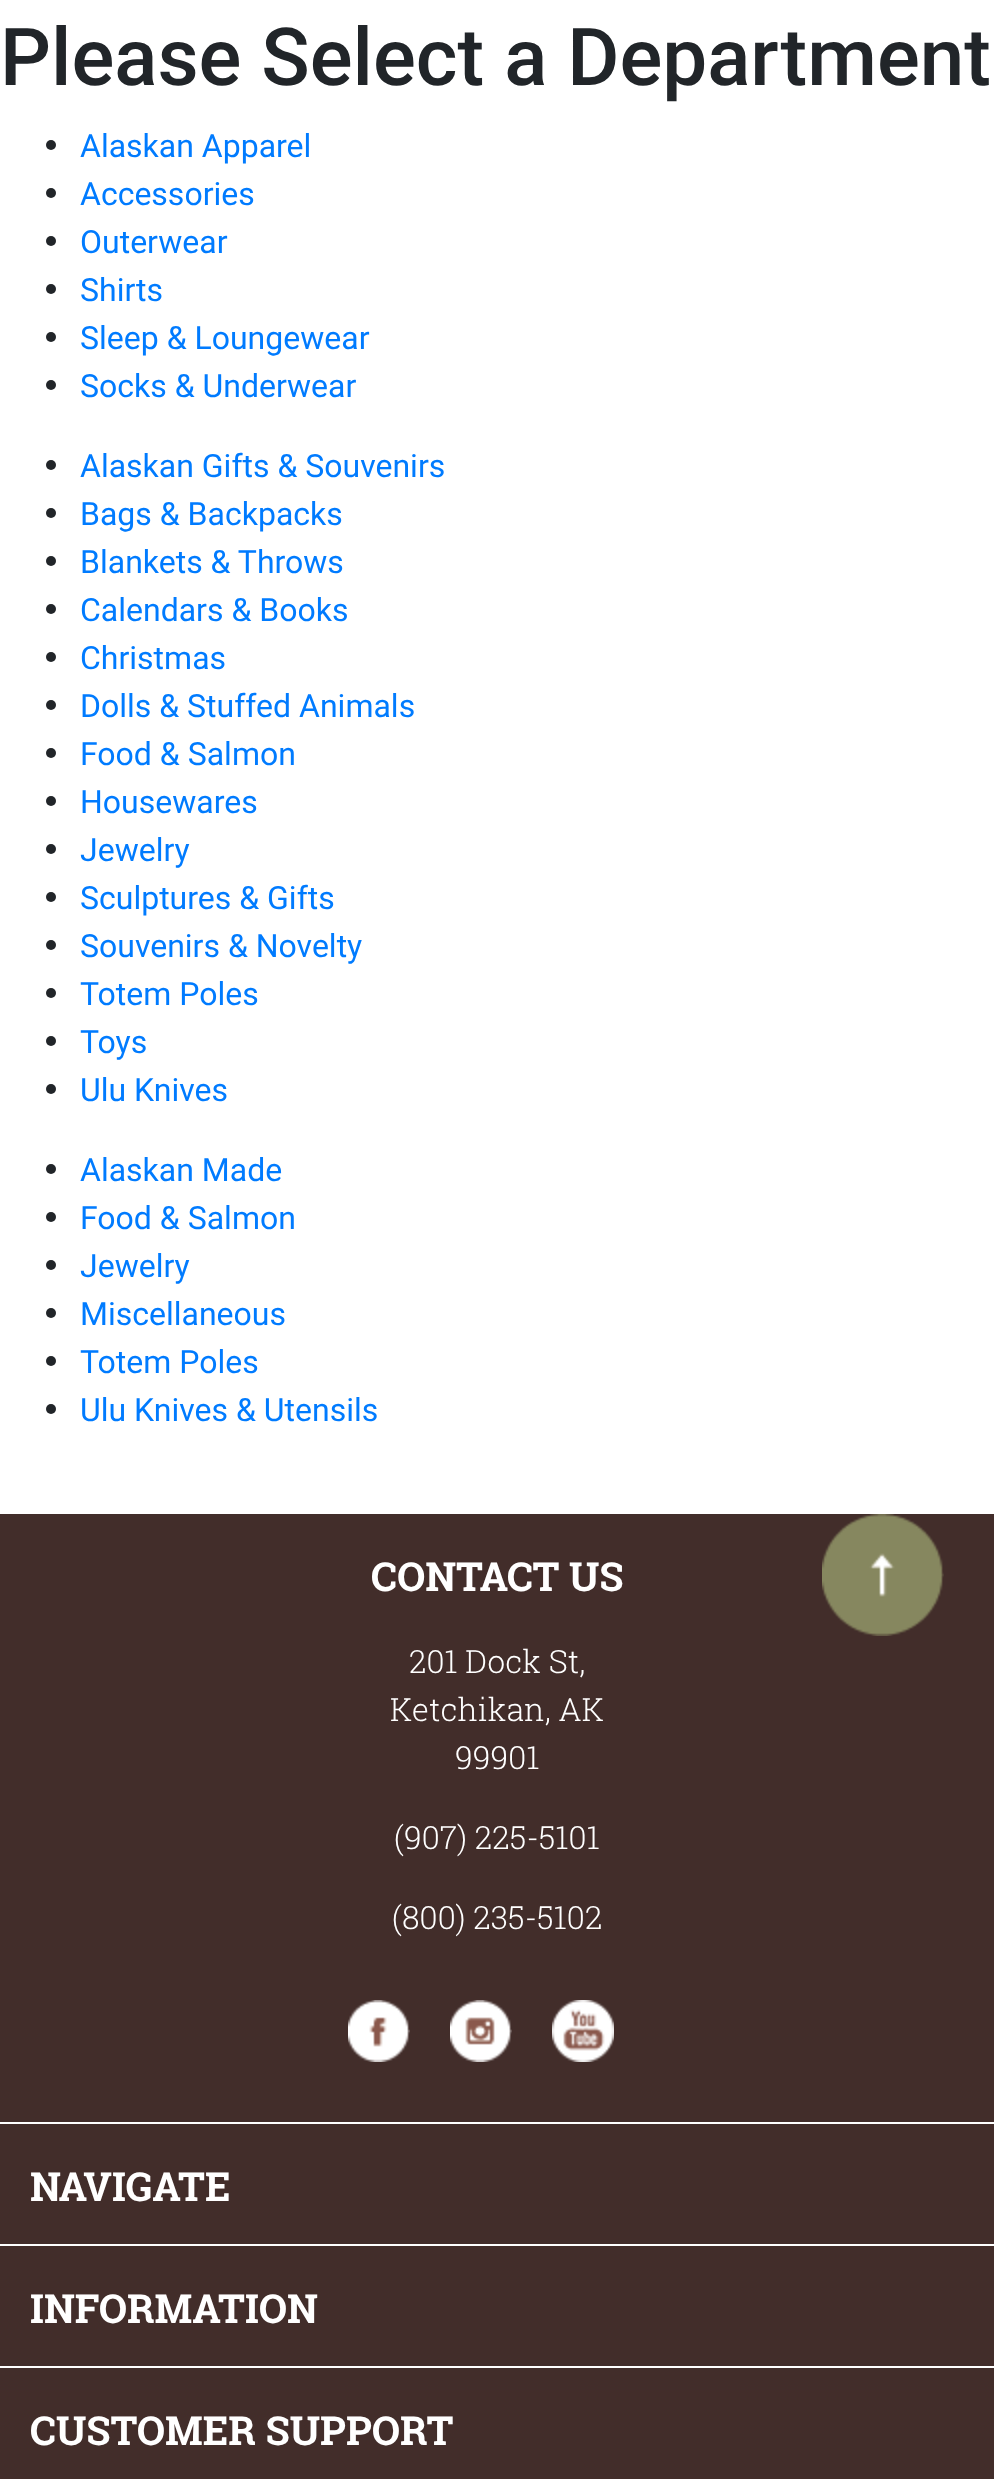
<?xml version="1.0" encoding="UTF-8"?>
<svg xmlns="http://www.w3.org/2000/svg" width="994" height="2479">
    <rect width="100%" height="100%" fill="#FFFFFF"/>
    <text x="0" y="85" font-family="Roboto" font-size="80" font-weight="500" fill="#212529">Please Select a Department</text>
    <circle cx="51" cy="145" r="5" fill="#212529"/>
    <text x="80" y="157" font-family="Roboto" font-size="32" fill="#007BFF">Alaskan Apparel</text>
    <circle cx="51" cy="193" r="5" fill="#212529"/>
    <text x="80" y="205" font-family="Roboto" font-size="32" fill="#007BFF">Accessories</text>
    <circle cx="51" cy="241" r="5" fill="#212529"/>
    <text x="80" y="253" font-family="Roboto" font-size="32" fill="#007BFF">Outerwear</text>
    <circle cx="51" cy="289" r="5" fill="#212529"/>
    <text x="80" y="301" font-family="Roboto" font-size="32" fill="#007BFF">Shirts</text>
    <circle cx="51" cy="337" r="5" fill="#212529"/>
    <text x="80" y="349" font-family="Roboto" font-size="32" fill="#007BFF">Sleep &amp; Loungewear</text>
    <circle cx="51" cy="385" r="5" fill="#212529"/>
    <text x="80" y="397" font-family="Roboto" font-size="32" fill="#007BFF">Socks &amp; Underwear</text>
    <circle cx="51" cy="465" r="5" fill="#212529"/>
    <text x="80" y="477" font-family="Roboto" font-size="32" fill="#007BFF">Alaskan Gifts &amp; Souvenirs</text>
    <circle cx="51" cy="513" r="5" fill="#212529"/>
    <text x="80" y="525" font-family="Roboto" font-size="32" fill="#007BFF">Bags &amp; Backpacks</text>
    <circle cx="51" cy="561" r="5" fill="#212529"/>
    <text x="80" y="573" font-family="Roboto" font-size="32" fill="#007BFF">Blankets &amp; Throws</text>
    <circle cx="51" cy="609" r="5" fill="#212529"/>
    <text x="80" y="621" font-family="Roboto" font-size="32" fill="#007BFF">Calendars &amp; Books</text>
    <circle cx="51" cy="657" r="5" fill="#212529"/>
    <text x="80" y="669" font-family="Roboto" font-size="32" fill="#007BFF">Christmas</text>
    <circle cx="51" cy="705" r="5" fill="#212529"/>
    <text x="80" y="717" font-family="Roboto" font-size="32" fill="#007BFF">Dolls &amp; Stuffed Animals</text>
    <circle cx="51" cy="753" r="5" fill="#212529"/>
    <text x="80" y="765" font-family="Roboto" font-size="32" fill="#007BFF">Food &amp; Salmon</text>
    <circle cx="51" cy="801" r="5" fill="#212529"/>
    <text x="80" y="813" font-family="Roboto" font-size="32" fill="#007BFF">Housewares</text>
    <circle cx="51" cy="849" r="5" fill="#212529"/>
    <text x="80" y="861" font-family="Roboto" font-size="32" fill="#007BFF">Jewelry</text>
    <circle cx="51" cy="897" r="5" fill="#212529"/>
    <text x="80" y="909" font-family="Roboto" font-size="32" fill="#007BFF">Sculptures &amp; Gifts</text>
    <circle cx="51" cy="945" r="5" fill="#212529"/>
    <text x="80" y="957" font-family="Roboto" font-size="32" fill="#007BFF">Souvenirs &amp; Novelty</text>
    <circle cx="51" cy="993" r="5" fill="#212529"/>
    <text x="80" y="1005" font-family="Roboto" font-size="32" fill="#007BFF">Totem Poles</text>
    <circle cx="51" cy="1041" r="5" fill="#212529"/>
    <text x="80" y="1053" font-family="Roboto" font-size="32" fill="#007BFF">Toys</text>
    <circle cx="51" cy="1089" r="5" fill="#212529"/>
    <text x="80" y="1101" font-family="Roboto" font-size="32" fill="#007BFF">Ulu Knives</text>
    <circle cx="51" cy="1169" r="5" fill="#212529"/>
    <text x="80" y="1181" font-family="Roboto" font-size="32" fill="#007BFF">Alaskan Made</text>
    <circle cx="51" cy="1217" r="5" fill="#212529"/>
    <text x="80" y="1229" font-family="Roboto" font-size="32" fill="#007BFF">Food &amp; Salmon</text>
    <circle cx="51" cy="1265" r="5" fill="#212529"/>
    <text x="80" y="1277" font-family="Roboto" font-size="32" fill="#007BFF">Jewelry</text>
    <circle cx="51" cy="1313" r="5" fill="#212529"/>
    <text x="80" y="1325" font-family="Roboto" font-size="32" fill="#007BFF">Miscellaneous</text>
    <circle cx="51" cy="1361" r="5" fill="#212529"/>
    <text x="80" y="1373" font-family="Roboto" font-size="32" fill="#007BFF">Totem Poles</text>
    <circle cx="51" cy="1409" r="5" fill="#212529"/>
    <text x="80" y="1421" font-family="Roboto" font-size="32" fill="#007BFF">Ulu Knives &amp; Utensils</text>
    <rect x="0" y="1514" width="994" height="965" fill="#422D2A"/>
    <text x="371" y="1591" font-family="Roboto Slab" font-size="40" font-weight="700" fill="#FFFFFF">CONTACT US</text>
    <text x="409" y="1673" font-family="Roboto Slab" font-size="32" font-weight="300" fill="#FFFFFF">201 Dock St,</text>
    <text x="390" y="1721" font-family="Roboto Slab" font-size="32" font-weight="300" fill="#FFFFFF">Ketchikan, AK</text>
    <text x="455" y="1769" font-family="Roboto Slab" font-size="32" font-weight="300" fill="#FFFFFF">99901</text>
    <text x="394" y="1849" font-family="Roboto Slab" font-size="32" font-weight="300" fill="#FFFFFF">(907) 225-5101</text>
    <text x="392" y="1929" font-family="Roboto Slab" font-size="32" font-weight="300" fill="#FFFFFF">(800) 235-5102</text>
    <image x="348" y="2000" width="62" height="62" href="img_01.png"/>
    <image x="450" y="2000" width="62" height="62" href="img_02.png"/>
    <image x="552" y="2000" width="62" height="62" href="img_03.png"/>
    <rect x="0" y="2122" width="994" height="2" fill="#FFFFFF"/>
    <rect x="0" y="2244" width="994" height="2" fill="#FFFFFF"/>
    <text x="30" y="2201" font-family="Roboto Slab" font-size="40" font-weight="700" fill="#FFFFFF">NAVIGATE</text>
    <rect x="0" y="2366" width="994" height="2" fill="#FFFFFF"/>
    <text x="30" y="2323" font-family="Roboto Slab" font-size="40" font-weight="700" fill="#FFFFFF">INFORMATION</text>
    <text x="30" y="2445" font-family="Roboto Slab" font-size="40" font-weight="700" fill="#FFFFFF">CUSTOMER SUPPORT</text>
    <image x="822" y="1514" width="122" height="122" href="img_04.png"/>
</svg>
